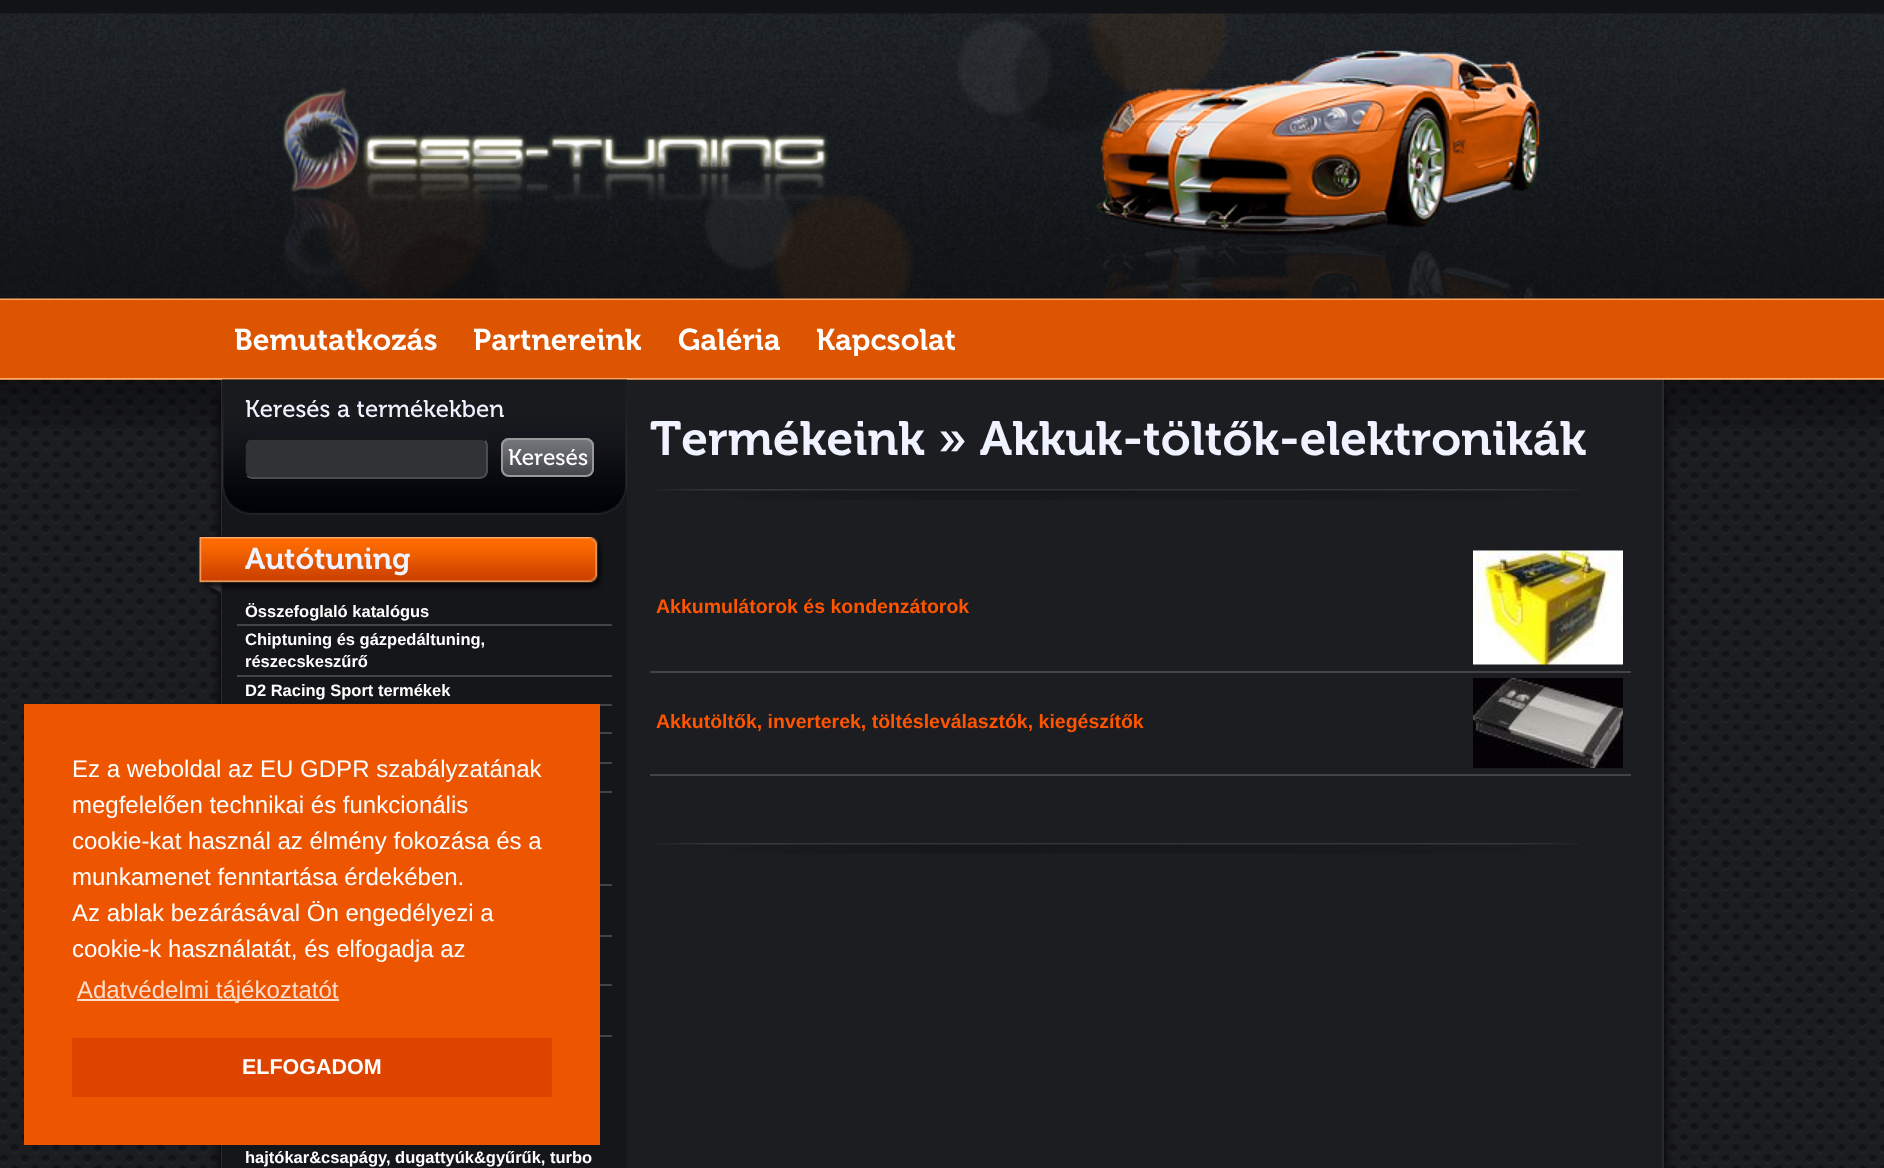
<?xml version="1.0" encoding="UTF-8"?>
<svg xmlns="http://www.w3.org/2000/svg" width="1884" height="1168">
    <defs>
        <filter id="blur1" x="-50%" y="-200%" width="200%" height="500%"><feGaussianBlur stdDeviation="6"/></filter>
    </defs>
    <rect width="100%" height="100%" fill="#FFFFFF"/>
    <image x="0" y="380" width="1884" height="788" href="img_01.png"/>
    <image x="0" y="0" width="1884" height="300" href="img_02.png"/>
    <image x="222" y="13" width="1440" height="286" href="img_03.png"/>
    <rect x="0" y="300" width="1884" height="78" fill="#DD5500"/>
    <rect x="0" y="378" width="1884" height="2" fill="#FFA766"/>
    <text x="234" y="350" font-family="'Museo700'" font-size="30" font-weight="600" fill="#FFFFFF">Bemutatkozás</text>
    <text x="473" y="350" font-family="'Museo700'" font-size="30" font-weight="600" fill="#FFFFFF">Partnereink</text>
    <text x="678" y="350" font-family="'Museo700'" font-size="30" font-weight="600" fill="#FFFFFF">Galéria</text>
    <text x="816" y="350" font-family="'Museo700'" font-size="30" font-weight="600" fill="#FFFFFF">Kapcsolat</text>
    <image x="0" y="379" width="1884" height="50" href="img_04.png"/>
    <rect x="221" y="392" width="1443" height="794" fill="#000000" filter="url(#blur1)"/>
    <rect x="627" y="380" width="1035" height="788" fill="#1C1D21"/>
    <rect x="1662" y="380" width="2" height="788" fill="#282A2E"/>
    <rect x="221" y="380" width="1" height="788" fill="#282A2E"/>
    <rect x="222" y="515" width="405" height="653" fill="#151619"/>
    <image x="222" y="379" width="405" height="136" href="img_05.png"/>
    <text x="245" y="417" font-family="'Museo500'" font-size="24" fill="#EFF2FF">Keresés a termékekben</text>
    <rect x="245" y="438" width="243" height="41" rx="8" fill="#303236"/>
    <path d="M 485 440.5 C 486 442 487 443.5 487 445.5 V 471 C 487 473 486 474.5 485 476 C 483.5 477 482 478 480 478 H 252 C 250 478 248.5 477 247 476" fill="none" stroke="#555555" stroke-width="1.5"/>
    <path d="M 247 476 C 246 474.5 245 473 245 471 V 445.5 C 245 443.5 246 442 247 440.5 C 248.5 439.5 250 439 252 439 H 480 C 482 439 483.5 439.5 485 440.5" fill="none" stroke="#111111" stroke-width="1.5"/>
    <image x="501" y="438" width="93" height="38" href="img_06.png"/>
    <rect x="502" y="439" width="91" height="37" rx="7" fill="none" stroke="#999999" stroke-width="2"/>
    <text x="508" y="465" font-family="'Museo500'" font-size="22.5" fill="#FFFFFF">Keresés</text>
    <image x="199" y="537" width="404" height="57" href="img_07.png"/>
    <text x="245" y="569" font-family="'Museo700'" font-size="30" font-weight="600" fill="#EFF2FF">Autótuning</text>
    <rect x="237" y="624" width="375" height="2" fill="#444444"/>
    <text x="245" y="617" font-family="Liberation Sans" font-size="16.5" font-weight="700" fill="#FFFFFF">Összefoglaló katalógus</text>
    <rect x="237" y="675" width="375" height="2" fill="#444444"/>
    <text font-family="Liberation Sans" font-size="16.5" font-weight="700" fill="#FFFFFF">
        <tspan x="245" y="645">Chiptuning és gázpedáltuning,</tspan>
        <tspan x="245" y="667">részecskeszűrő</tspan>
    </text>
    <rect x="600" y="704" width="12" height="2" fill="#444444"/>
    <text x="245" y="696" font-family="Liberation Sans" font-size="16.5" font-weight="700" fill="#FFFFFF">D2 Racing Sport termékek</text>
    <rect x="600" y="732" width="12" height="2" fill="#444444"/>
    <rect x="600" y="762" width="12" height="2" fill="#444444"/>
    <rect x="600" y="791" width="12" height="2" fill="#444444"/>
    <rect x="600" y="884" width="12" height="2" fill="#444444"/>
    <rect x="600" y="935" width="12" height="2" fill="#444444"/>
    <rect x="600" y="984" width="12" height="2" fill="#444444"/>
    <rect x="600" y="1035" width="12" height="2" fill="#444444"/>
    <text x="245" y="1163" font-family="Liberation Sans" font-size="16.5" font-weight="700" fill="#FFFFFF">hajtókar&amp;csapágy, dugattyúk&amp;gyűrűk, turbo</text>
    <text x="650" y="455" font-family="'Museo700'" font-size="48" font-weight="600" fill="#EFF2FF">Termékeink » Akkuk-töltők-elektronikák</text>
    <image x="655" y="489" width="925" height="11" href="img_08.png"/>
    <rect x="650" y="671" width="981" height="2" fill="#444444"/>
    <image x="1473" y="550" width="150" height="115" href="img_09.png"/>
    <text x="656" y="613" font-family="Liberation Sans" font-size="19.5" font-weight="700" fill="#FF5500">Akkumulátorok és kondenzátorok</text>
    <rect x="650" y="774" width="981" height="2" fill="#444444"/>
    <image x="1473" y="678" width="150" height="90" href="img_10.png"/>
    <text x="656" y="728" font-family="Liberation Sans" font-size="19.5" font-weight="700" fill="#FF5500">Akkutöltők, inverterek, töltésleválasztók, kiegészítők</text>
    <image x="655" y="843" width="925" height="11" href="img_08.png"/>
    <rect x="24" y="704" width="576" height="441" fill="#EE5500"/>
    <text font-family="Liberation Sans" font-size="24" fill="#FFFFFF">
        <tspan x="72" y="777">Ez a weboldal az EU GDPR szabályzatának</tspan>
        <tspan x="72" y="813">megfelelően technikai és funkcionális</tspan>
        <tspan x="72" y="849">cookie-kat használ az élmény fokozása és a</tspan>
        <tspan x="72" y="885">munkamenet fenntartása érdekében.</tspan>
        <tspan x="72" y="921">Az ablak bezárásával Ön engedélyezi a</tspan>
        <tspan x="72" y="957">cookie-k használatát, és elfogadja az</tspan>
    </text>
    <rect x="77" y="999" width="262" height="2" fill="#FCDDCC"/>
    <text x="77" y="998" font-family="Liberation Sans" font-size="24" fill="#FCDDCC">Adatvédelmi tájékoztatót</text>
    <rect x="72" y="1038" width="480" height="59" fill="#DD4400"/>
    <text x="242" y="1074" font-family="Liberation Sans" font-size="21.5" font-weight="700" fill="#FFFFFF">ELFOGADOM</text>
</svg>
